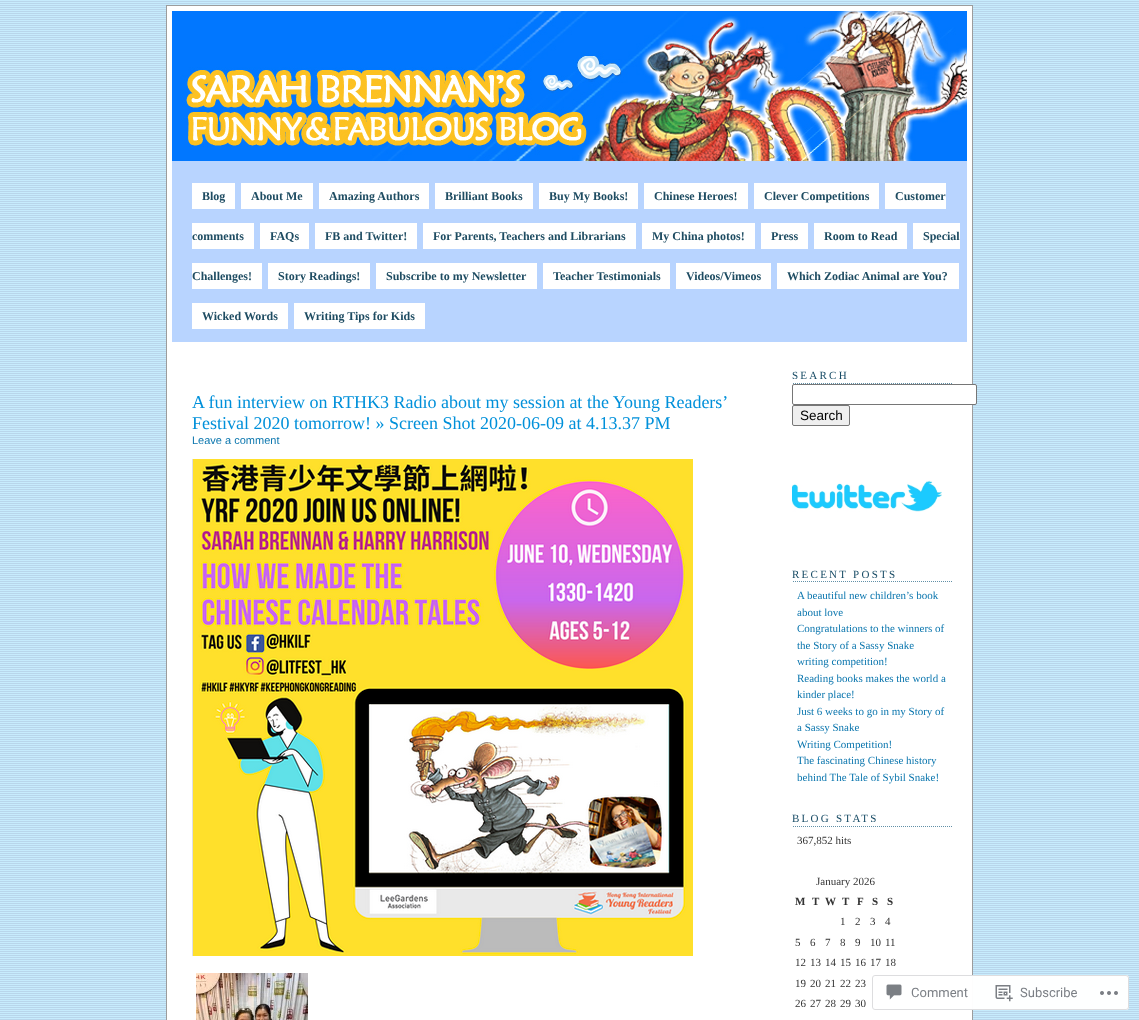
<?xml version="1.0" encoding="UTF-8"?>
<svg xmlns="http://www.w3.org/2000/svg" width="1139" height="1020">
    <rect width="100%" height="100%" fill="#FFFFFF"/>
    <image x="0" y="0" width="1139" height="1020" href="img_01.png"/>
    <rect x="166.5" y="5.5" width="806" height="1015" fill="#FFFFFF" stroke="#9C9C9C"/>
    <image x="172" y="11" width="795" height="150" href="img_02.png"/>
    <rect x="172" y="161" width="795" height="181" fill="#B8D4FF"/>
    <rect x="192" y="183" width="43" height="26" fill="#FFFFFF"/>
    <text x="202" y="200" font-family="Liberation Serif" font-size="12" font-weight="700" fill="#1E4C62">Blog</text>
    <rect x="241" y="183" width="72" height="26" fill="#FFFFFF"/>
    <text x="251" y="200" font-family="Liberation Serif" font-size="12" font-weight="700" fill="#1E4C62">About Me</text>
    <rect x="319" y="183" width="110" height="26" fill="#FFFFFF"/>
    <text x="329" y="200" font-family="Liberation Serif" font-size="12" font-weight="700" fill="#1E4C62">Amazing Authors</text>
    <rect x="435" y="183" width="98" height="26" fill="#FFFFFF"/>
    <text x="445" y="200" font-family="Liberation Serif" font-size="12" font-weight="700" fill="#1E4C62">Brilliant Books</text>
    <rect x="539" y="183" width="99" height="26" fill="#FFFFFF"/>
    <text x="549" y="200" font-family="Liberation Serif" font-size="12" font-weight="700" fill="#1E4C62">Buy My Books!</text>
    <rect x="644" y="183" width="104" height="26" fill="#FFFFFF"/>
    <text x="654" y="200" font-family="Liberation Serif" font-size="12" font-weight="700" fill="#1E4C62">Chinese Heroes!</text>
    <rect x="754" y="183" width="125" height="26" fill="#FFFFFF"/>
    <text x="764" y="200" font-family="Liberation Serif" font-size="12" font-weight="700" fill="#1E4C62">Clever Competitions</text>
    <rect x="885" y="183" width="61" height="26" fill="#FFFFFF"/>
    <text x="895" y="200" font-family="Liberation Serif" font-size="12" font-weight="700" fill="#1E4C62">Customer</text>
    <rect x="192" y="223" width="62" height="26" fill="#FFFFFF"/>
    <text x="192" y="240" font-family="Liberation Serif" font-size="12" font-weight="700" fill="#1E4C62">comments</text>
    <rect x="260" y="223" width="49" height="26" fill="#FFFFFF"/>
    <text x="270" y="240" font-family="Liberation Serif" font-size="12" font-weight="700" fill="#1E4C62">FAQs</text>
    <rect x="315" y="223" width="102" height="26" fill="#FFFFFF"/>
    <text x="325" y="240" font-family="Liberation Serif" font-size="12" font-weight="700" fill="#1E4C62">FB and Twitter!</text>
    <rect x="423" y="223" width="213" height="26" fill="#FFFFFF"/>
    <text x="433" y="240" font-family="Liberation Serif" font-size="12" font-weight="700" fill="#1E4C62">For Parents, Teachers and Librarians</text>
    <rect x="642" y="223" width="113" height="26" fill="#FFFFFF"/>
    <text x="652" y="240" font-family="Liberation Serif" font-size="12" font-weight="700" fill="#1E4C62">My China photos!</text>
    <rect x="761" y="223" width="47" height="26" fill="#FFFFFF"/>
    <text x="771" y="240" font-family="Liberation Serif" font-size="12" font-weight="700" fill="#1E4C62">Press</text>
    <rect x="814" y="223" width="93" height="26" fill="#FFFFFF"/>
    <text x="824" y="240" font-family="Liberation Serif" font-size="12" font-weight="700" fill="#1E4C62">Room to Read</text>
    <rect x="913" y="223" width="47" height="26" fill="#FFFFFF"/>
    <text x="923" y="240" font-family="Liberation Serif" font-size="12" font-weight="700" fill="#1E4C62">Special</text>
    <rect x="192" y="263" width="70" height="26" fill="#FFFFFF"/>
    <text x="192" y="280" font-family="Liberation Serif" font-size="12" font-weight="700" fill="#1E4C62">Challenges!</text>
    <rect x="268" y="263" width="102" height="26" fill="#FFFFFF"/>
    <text x="278" y="280" font-family="Liberation Serif" font-size="12" font-weight="700" fill="#1E4C62">Story Readings!</text>
    <rect x="376" y="263" width="161" height="26" fill="#FFFFFF"/>
    <text x="386" y="280" font-family="Liberation Serif" font-size="12" font-weight="700" fill="#1E4C62">Subscribe to my Newsletter</text>
    <rect x="543" y="263" width="127" height="26" fill="#FFFFFF"/>
    <text x="553" y="280" font-family="Liberation Serif" font-size="12" font-weight="700" fill="#1E4C62">Teacher Testimonials</text>
    <rect x="676" y="263" width="95" height="26" fill="#FFFFFF"/>
    <text x="686" y="280" font-family="Liberation Serif" font-size="12" font-weight="700" fill="#1E4C62">Videos/Vimeos</text>
    <rect x="777" y="263" width="182" height="26" fill="#FFFFFF"/>
    <text x="787" y="280" font-family="Liberation Serif" font-size="12" font-weight="700" fill="#1E4C62">Which Zodiac Animal are You?</text>
    <rect x="192" y="303" width="96" height="26" fill="#FFFFFF"/>
    <text x="202" y="320" font-family="Liberation Serif" font-size="12" font-weight="700" fill="#1E4C62">Wicked Words</text>
    <rect x="294" y="303" width="131" height="26" fill="#FFFFFF"/>
    <text x="304" y="320" font-family="Liberation Serif" font-size="12" font-weight="700" fill="#1E4C62">Writing Tips for Kids</text>
    <text font-family="Liberation Serif" font-size="18" fill="#0090DA">
        <tspan x="192" y="408">A fun interview on RTHK3 Radio about my session at the Young Readers’</tspan>
        <tspan x="192" y="429">Festival 2020 tomorrow! » Screen Shot 2020-06-09 at 4.13.37 PM</tspan>
    </text>
    <text x="192" y="444" font-family="Liberation Sans" font-size="11" fill="#0B76AE">Leave a comment</text>
    <image x="192" y="459" width="501" height="497" href="img_03.png"/>
    <image x="196" y="973" width="112" height="47" href="img_04.png"/>
    <image x="793" y="383" width="159" height="1" href="img_05.png"/>
    <text x="792" y="379" font-family="Liberation Serif" font-size="11" letter-spacing="2.25" fill="#174B65">SEARCH</text>
    <rect x="792.5" y="384.5" width="184" height="20" rx="1.5" fill="#FFFFFF" stroke="#767676"/>
    <rect x="792.5" y="405.5" width="57" height="20" rx="1.5" fill="#EFEFEF" stroke="#767676"/>
    <text x="800" y="420" font-family="Liberation Sans" font-size="13.5" fill="#000000">Search</text>
    <image x="792" y="480" width="150" height="32" href="img_06.png"/>
    <image x="793" y="581" width="159" height="1" href="img_05.png"/>
    <text x="792" y="578" font-family="Liberation Serif" font-size="11" letter-spacing="2.25" fill="#174B65">RECENT POSTS</text>
    <text font-family="Liberation Serif" font-size="11" fill="#0B76AE">
        <tspan x="797" y="599">A beautiful new children’s book</tspan>
        <tspan x="797" y="616">about love</tspan>
        <tspan x="797" y="632">Congratulations to the winners of</tspan>
        <tspan x="797" y="649">the Story of a Sassy Snake</tspan>
        <tspan x="797" y="665">writing competition!</tspan>
        <tspan x="797" y="682">Reading books makes the world a</tspan>
        <tspan x="797" y="698">kinder place!</tspan>
        <tspan x="797" y="715">Just 6 weeks to go in my Story of</tspan>
        <tspan x="797" y="731">a Sassy Snake</tspan>
        <tspan x="797" y="748">Writing Competition!</tspan>
        <tspan x="797" y="764">The fascinating Chinese history</tspan>
        <tspan x="797" y="781">behind The Tale of Sybil Snake!</tspan>
    </text>
    <image x="793" y="826" width="159" height="1" href="img_05.png"/>
    <text x="792" y="822" font-family="Liberation Serif" font-size="11" letter-spacing="2.25" fill="#174B65">BLOG STATS</text>
    <text x="797" y="844" font-family="Liberation Serif" font-size="11" fill="#333333">367,852 hits</text>
    <text x="816" y="885" font-family="Liberation Serif" font-size="11" fill="#333333">January 2026</text>
    <text x="795" y="905" font-family="Liberation Serif" font-size="11" font-weight="700" fill="#333333">M</text>
    <text x="812" y="905" font-family="Liberation Serif" font-size="11" font-weight="700" fill="#333333">T</text>
    <text x="825" y="905" font-family="Liberation Serif" font-size="11" font-weight="700" fill="#333333">W</text>
    <text x="842" y="905" font-family="Liberation Serif" font-size="11" font-weight="700" fill="#333333">T</text>
    <text x="857" y="905" font-family="Liberation Serif" font-size="11" font-weight="700" fill="#333333">F</text>
    <text x="872" y="905" font-family="Liberation Serif" font-size="11" font-weight="700" fill="#333333">S</text>
    <text x="887" y="905" font-family="Liberation Serif" font-size="11" font-weight="700" fill="#333333">S</text>
    <text x="840" y="925" font-family="Liberation Serif" font-size="11" fill="#333333">1</text>
    <text x="855" y="925" font-family="Liberation Serif" font-size="11" fill="#333333">2</text>
    <text x="870" y="925" font-family="Liberation Serif" font-size="11" fill="#333333">3</text>
    <text x="885" y="925" font-family="Liberation Serif" font-size="11" fill="#333333">4</text>
    <text x="795" y="946" font-family="Liberation Serif" font-size="11" fill="#333333">5</text>
    <text x="810" y="946" font-family="Liberation Serif" font-size="11" fill="#333333">6</text>
    <text x="825" y="946" font-family="Liberation Serif" font-size="11" fill="#333333">7</text>
    <text x="840" y="946" font-family="Liberation Serif" font-size="11" fill="#333333">8</text>
    <text x="855" y="946" font-family="Liberation Serif" font-size="11" fill="#333333">9</text>
    <text x="870" y="946" font-family="Liberation Serif" font-size="11" fill="#333333">10</text>
    <text x="885" y="946" font-family="Liberation Serif" font-size="11" fill="#333333">11</text>
    <text x="795" y="966" font-family="Liberation Serif" font-size="11" fill="#333333">12</text>
    <text x="810" y="966" font-family="Liberation Serif" font-size="11" fill="#333333">13</text>
    <text x="825" y="966" font-family="Liberation Serif" font-size="11" fill="#333333">14</text>
    <text x="840" y="966" font-family="Liberation Serif" font-size="11" fill="#333333">15</text>
    <text x="855" y="966" font-family="Liberation Serif" font-size="11" fill="#333333">16</text>
    <text x="870" y="966" font-family="Liberation Serif" font-size="11" fill="#333333">17</text>
    <text x="885" y="966" font-family="Liberation Serif" font-size="11" fill="#333333">18</text>
    <text x="795" y="987" font-family="Liberation Serif" font-size="11" fill="#333333">19</text>
    <text x="810" y="987" font-family="Liberation Serif" font-size="11" fill="#333333">20</text>
    <text x="825" y="987" font-family="Liberation Serif" font-size="11" fill="#333333">21</text>
    <text x="840" y="987" font-family="Liberation Serif" font-size="11" fill="#333333">22</text>
    <text x="855" y="987" font-family="Liberation Serif" font-size="11" fill="#333333">23</text>
    <text x="795" y="1007" font-family="Liberation Serif" font-size="11" fill="#333333">26</text>
    <text x="810" y="1007" font-family="Liberation Serif" font-size="11" fill="#333333">27</text>
    <text x="825" y="1007" font-family="Liberation Serif" font-size="11" fill="#333333">28</text>
    <text x="840" y="1007" font-family="Liberation Serif" font-size="11" fill="#333333">29</text>
    <text x="855" y="1007" font-family="Liberation Serif" font-size="11" fill="#333333">30</text>
    <rect x="872" y="975" width="257" height="35" rx="3" fill="#FFFFFF" fill-opacity="0.98"/>
    <rect x="872.5" y="975.5" width="256" height="34" rx="2.5" fill="none" stroke="#DCDCDE" stroke-opacity="0.98"/>
    <image x="886" y="984" width="16" height="16" href="img_07.png"/>
    <text x="911" y="997" font-family="Roboto" font-size="13" fill="#7B7F85">Comment</text>
    <image x="995" y="985" width="18" height="17" href="img_08.png"/>
    <text x="1020" y="997" font-family="Roboto" font-size="13" fill="#7B7F85">Subscribe</text>
    <image x="1100" y="991" width="18" height="4" href="img_09.png"/>
</svg>
